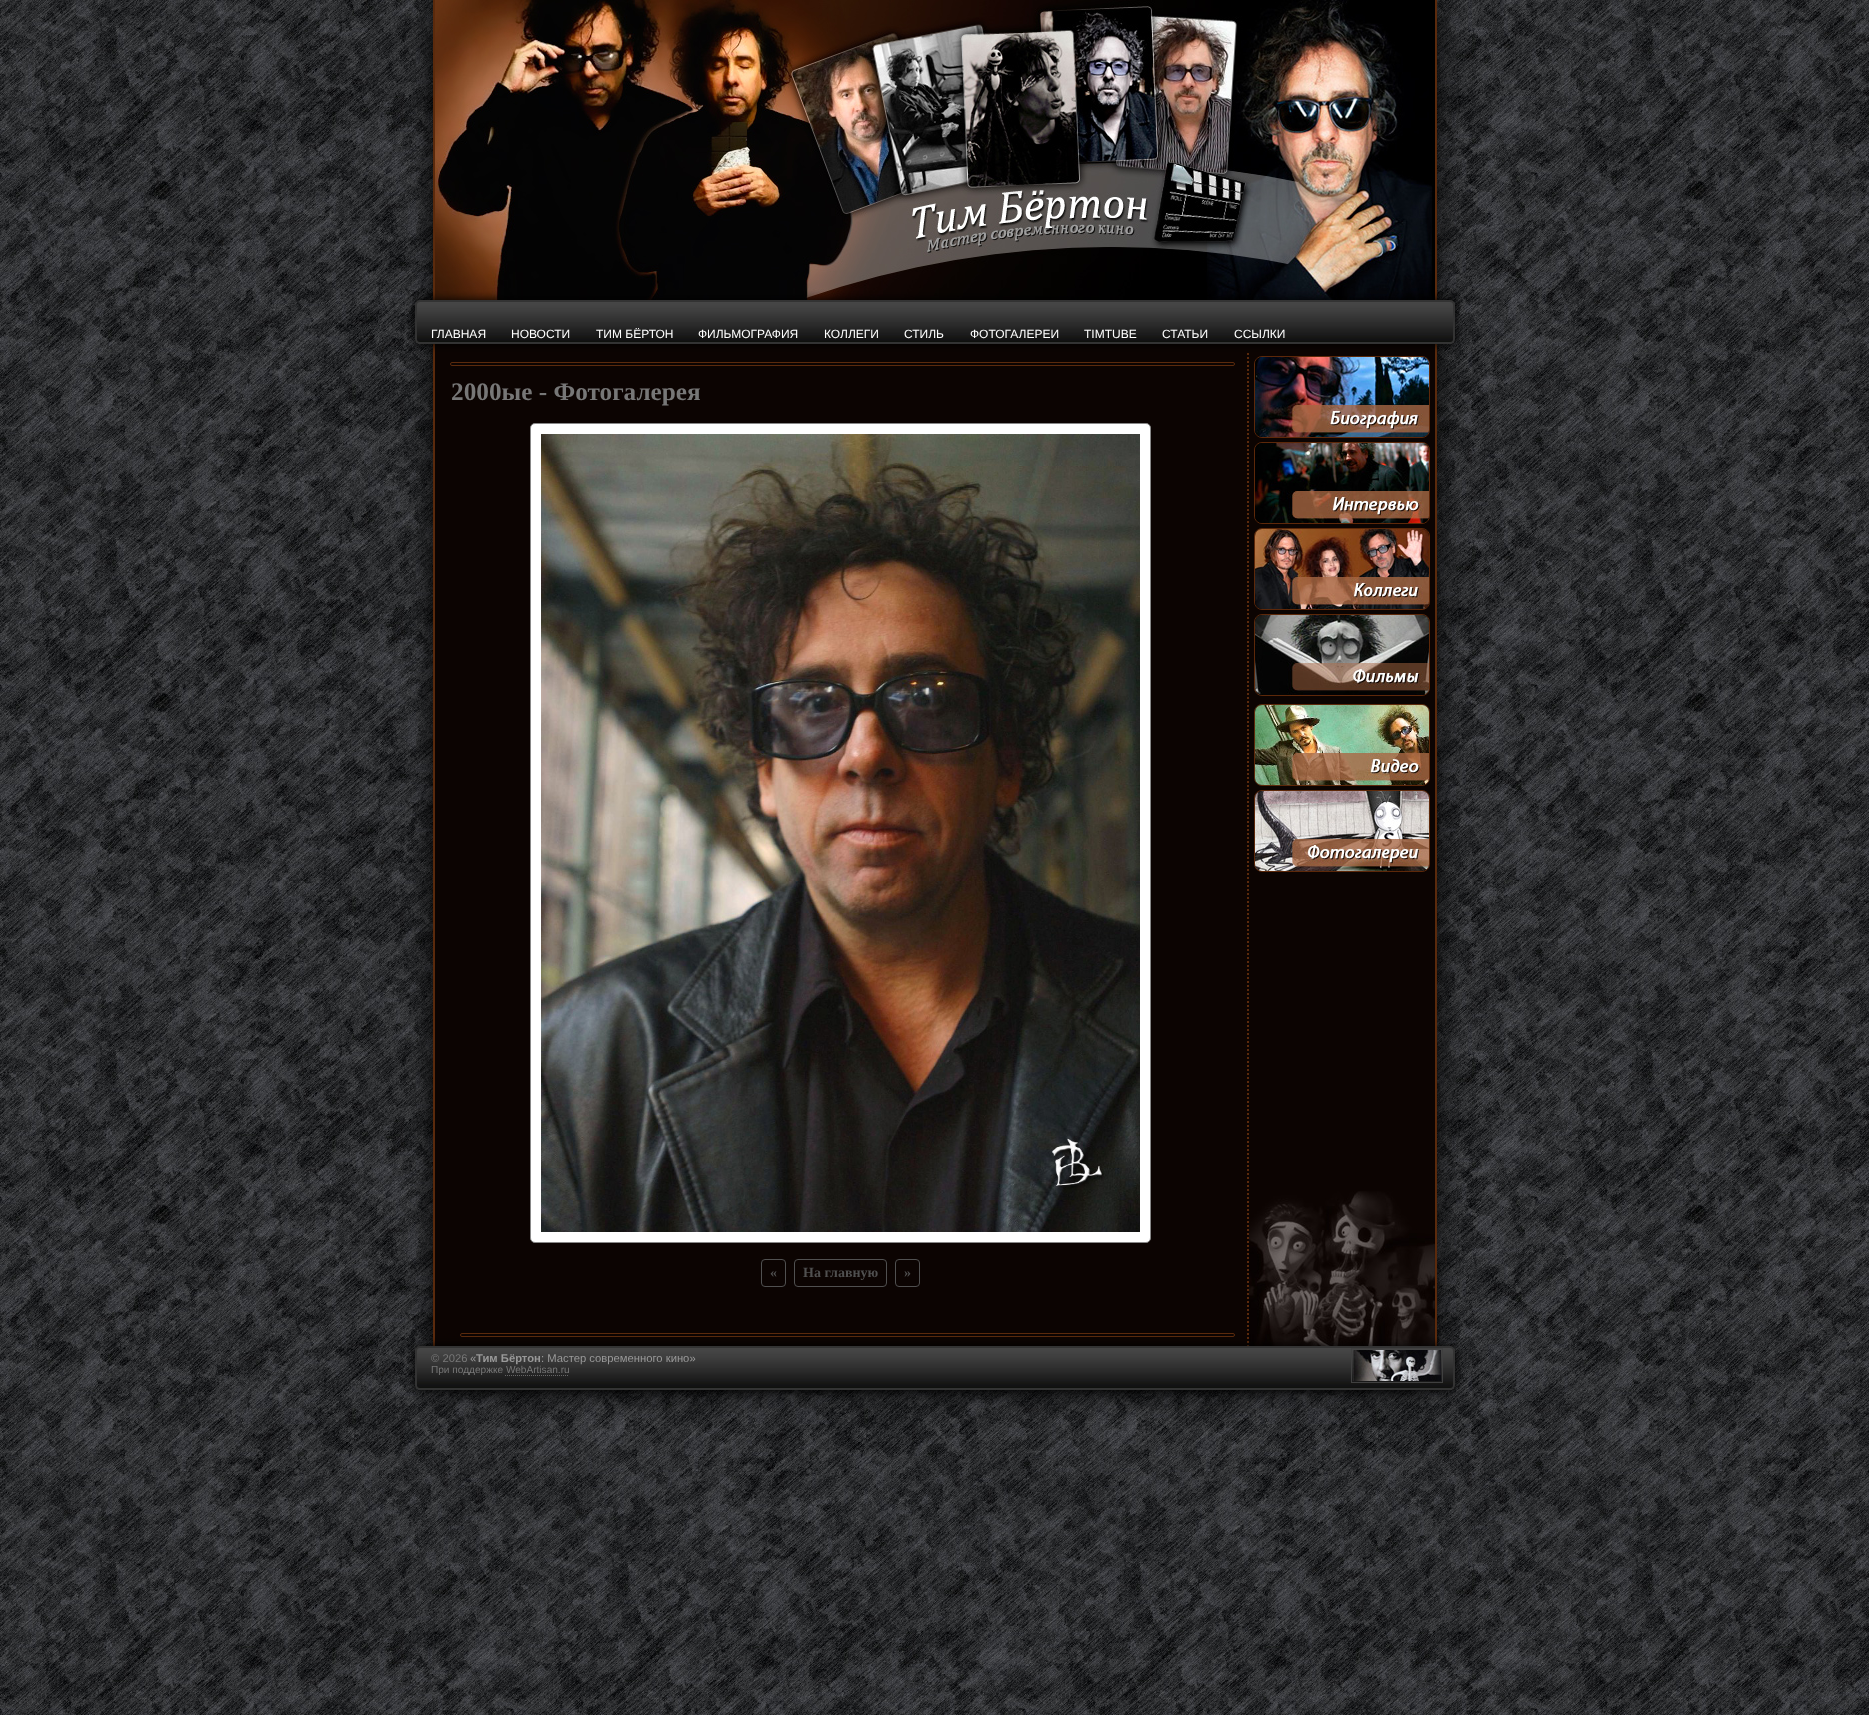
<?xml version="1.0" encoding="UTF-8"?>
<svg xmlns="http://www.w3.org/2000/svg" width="1869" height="1715">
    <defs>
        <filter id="blur1" x="-50%" y="-200%" width="200%" height="500%"><feGaussianBlur stdDeviation="15"/></filter>
        <filter id="blur2" x="-50%" y="-200%" width="200%" height="500%"><feGaussianBlur stdDeviation="5"/></filter>
    </defs>
    <rect width="100%" height="100%" fill="#FFFFFF"/>
    <image x="0" y="0" width="1869" height="1715" href="img_01.png"/>
    <rect x="433" y="0" width="1004" height="1390" fill="#000000" filter="url(#blur1)"/>
    <rect x="435" y="344" width="1000" height="1002" fill="#0C0402"/>
    <rect x="1435" y="0" width="2" height="1346" fill="#5B2A0C"/>
    <rect x="433" y="0" width="2" height="1346" fill="#5B2A0C"/>
    <image x="435" y="0" width="1000" height="300" href="img_02.png"/>
    <path d="M 1248 353 V 1346" fill="none" stroke="#5B2A0C" stroke-width="2" stroke-dasharray="2 2"/>
    <rect x="1254.5" y="356.5" width="175" height="81" rx="7.5" fill="none" stroke="#5D2809"/>
    <image x="1255" y="357" width="174" height="80" href="img_06.png"/>
    <rect x="415" y="300" width="1040" height="44" rx="5" fill="#000000" filter="url(#blur2)"/>
    <image x="415" y="300" width="1040" height="44" href="img_03.png"/>
    <rect x="416" y="301" width="1038" height="42" rx="4" fill="none" stroke="#333333" stroke-width="2"/>
    <text x="431" y="338" font-family="Liberation Sans" font-size="12" fill="#FFFFFF">ГЛАВНАЯ</text>
    <text x="511" y="338" font-family="Liberation Sans" font-size="12" fill="#FFFFFF">НОВОСТИ</text>
    <text x="596" y="338" font-family="Liberation Sans" font-size="12" fill="#FFFFFF">ТИМ БЁРТОН</text>
    <text x="698" y="338" font-family="Liberation Sans" font-size="12" fill="#FFFFFF">ФИЛЬМОГРАФИЯ</text>
    <text x="824" y="338" font-family="Liberation Sans" font-size="12" fill="#FFFFFF">КОЛЛЕГИ</text>
    <text x="904" y="338" font-family="Liberation Sans" font-size="12" fill="#FFFFFF">СТИЛЬ</text>
    <text x="970" y="338" font-family="Liberation Sans" font-size="12" fill="#FFFFFF">ФОТОГАЛЕРЕИ</text>
    <text x="1084" y="338" font-family="Liberation Sans" font-size="12" fill="#FFFFFF">TIMTUBE</text>
    <text x="1162" y="338" font-family="Liberation Sans" font-size="12" fill="#FFFFFF">СТАТЬИ</text>
    <text x="1234" y="338" font-family="Liberation Sans" font-size="12" fill="#FFFFFF">ССЫЛКИ</text>
    <rect x="450.5" y="362.5" width="784" height="3" rx="1.5" fill="none" stroke="#5B2A0C"/>
    <text x="451" y="400" font-family="Liberation Serif" font-size="25.25" font-weight="700" fill="#777777">2000ые - Фотогалерея</text>
    <rect x="530.5" y="423.5" width="620" height="819" rx="4.5" fill="#FFFFFF" stroke="#888888"/>
    <image x="541" y="434" width="599" height="798" href="img_04.png"/>
    <rect x="761.5" y="1259.5" width="24" height="27" rx="3.5" fill="none" stroke="#505050"/>
    <text x="770" y="1277" font-family="Liberation Serif" font-size="14" font-weight="700" fill="#505050">«</text>
    <rect x="794.5" y="1259.5" width="92" height="27" rx="3.5" fill="none" stroke="#505050"/>
    <text x="803" y="1277" font-family="Liberation Serif" font-size="14" font-weight="700" fill="#505050">На главную</text>
    <rect x="895.5" y="1259.5" width="24" height="27" rx="3.5" fill="none" stroke="#505050"/>
    <text x="904" y="1277" font-family="Liberation Serif" font-size="14" font-weight="700" fill="#505050">»</text>
    <rect x="460.5" y="1333.5" width="774" height="3" rx="1.5" fill="none" stroke="#5B2A0C"/>
    <image x="1249" y="1191" width="186" height="155" href="img_05.png"/>
    <rect x="1254.5" y="442.5" width="175" height="81" rx="7.5" fill="none" stroke="#5D2809"/>
    <image x="1255" y="443" width="174" height="80" href="img_07.png"/>
    <rect x="1254.5" y="528.5" width="175" height="81" rx="7.5" fill="none" stroke="#5D2809"/>
    <image x="1255" y="529" width="174" height="80" href="img_08.png"/>
    <rect x="1254.5" y="614.5" width="175" height="81" rx="7.5" fill="none" stroke="#5D2809"/>
    <image x="1255" y="615" width="174" height="80" href="img_09.png"/>
    <rect x="1254.5" y="704.5" width="175" height="81" rx="7.5" fill="none" stroke="#5D2809"/>
    <image x="1255" y="705" width="174" height="80" href="img_10.png"/>
    <rect x="1254.5" y="790.5" width="175" height="81" rx="7.5" fill="none" stroke="#5D2809"/>
    <image x="1255" y="791" width="174" height="80" href="img_11.png"/>
    <rect x="415" y="1346" width="1040" height="44" rx="5" fill="#000000" filter="url(#blur2)"/>
    <image x="415" y="1346" width="1040" height="44" href="img_12.png"/>
    <rect x="416" y="1347" width="1038" height="42" rx="4" fill="none" stroke="#333333" stroke-width="2"/>
    <text x="431" y="1362" font-family="Liberation Sans" font-size="11.25" fill="#777777">© 2026</text>
    <text x="470" y="1362" font-family="Liberation Sans" font-size="11.25" fill="#999999">«</text>
    <text x="476" y="1362" font-family="Liberation Sans" font-size="11.25" font-weight="700" fill="#999999">Тим Бёртон</text>
    <text x="541" y="1362" font-family="Liberation Sans" font-size="11.25" fill="#999999">: Мастер современного кино»</text>
    <text x="431" y="1373" font-family="Liberation Sans" font-size="10.1" fill="#777777">При поддержке WebArtisan.ru</text>
    <path d="M 505 1375.5 H 569" fill="none" stroke="#666666" stroke-dasharray="1 1"/>
    <rect x="1351.5" y="1348.5" width="91" height="34" fill="none" stroke="#404040"/>
    <image x="1353" y="1350" width="88" height="31" href="img_13.png"/>
</svg>
